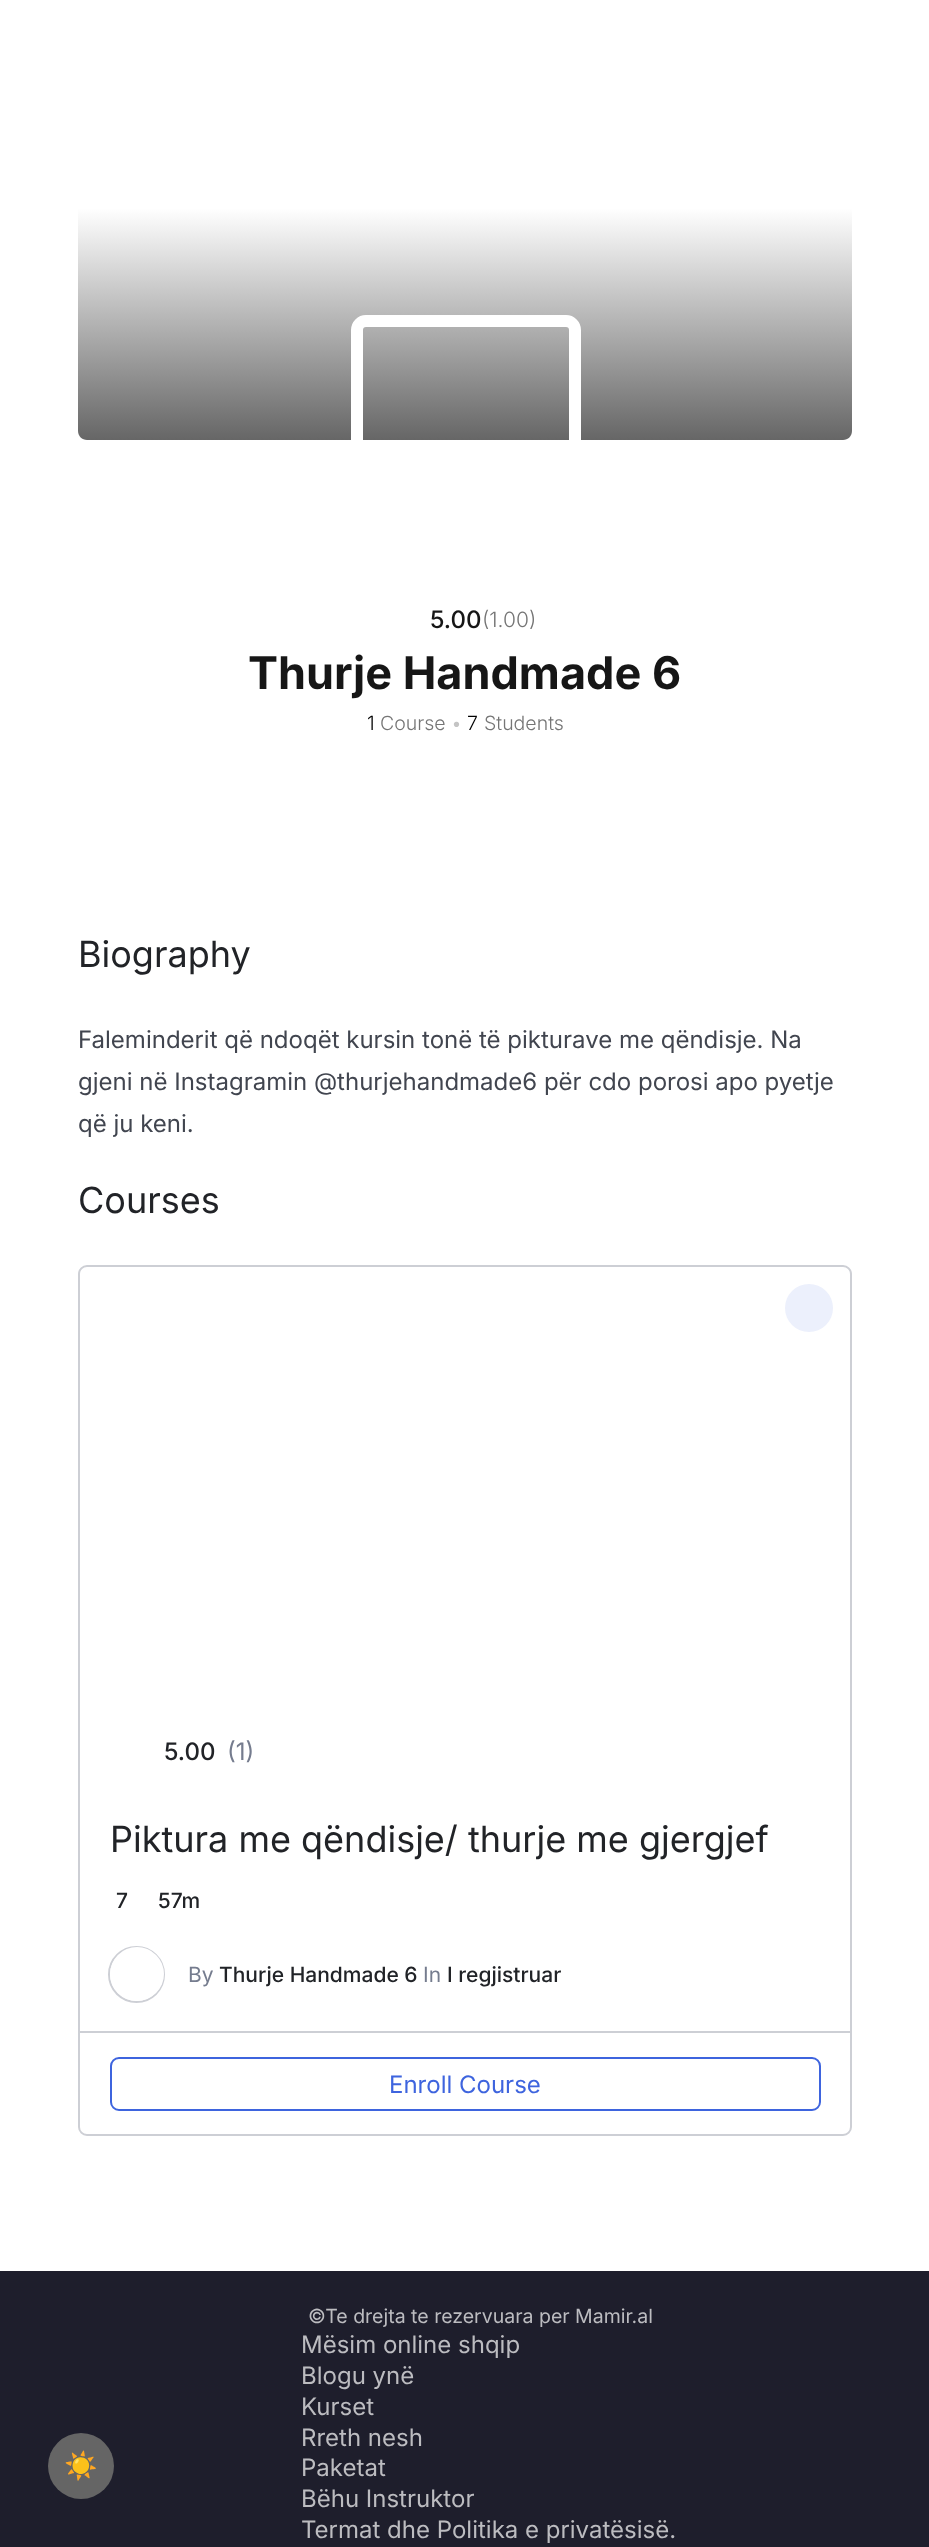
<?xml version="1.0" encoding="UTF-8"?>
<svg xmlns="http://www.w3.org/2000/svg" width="929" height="2547">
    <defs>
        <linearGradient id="g1" gradientUnits="userSpaceOnUse" x1="465" y1="208" x2="465" y2="440"><stop offset="0" stop-color="#FFFFFF"/><stop offset="1" stop-color="#666666"/></linearGradient>
    </defs>
    <rect width="100%" height="100%" fill="#FFFFFF"/>
    <path d="M 78 209 H 852 V 431 C 852 436 848 440 843 440 H 87 C 82 440 78 436 78 431 Z" fill="url(#g1)"/>
    <rect x="357" y="321" width="218" height="228" rx="9" fill="none" stroke="#FFFFFF" stroke-width="12"/>
    <text x="430" y="628" font-family="Inter" font-size="24" font-weight="500" fill="#161616">5.00</text>
    <text x="482" y="627" font-family="Inter" font-size="21" font-weight="300" fill="#757575">(1.00)</text>
    <text x="248" y="689" font-family="Inter" font-size="45" font-weight="700" fill="#161616">Thurje Handmade 6</text>
    <text x="367" y="730" font-family="Inter" font-size="19.5" font-weight="300" fill="#000000">1</text>
    <text x="380" y="730" font-family="Inter" font-size="19.5" font-weight="300" fill="#757575">Course</text>
    <text x="451" y="730" font-family="Inter" font-size="19.5" font-weight="300" fill="#C4C4C4">•</text>
    <text x="467" y="730" font-family="Inter" font-size="19.5" font-weight="300" fill="#000000">7</text>
    <text x="484" y="730" font-family="Inter" font-size="19.5" font-weight="300" fill="#757575">Students</text>
    <text x="78" y="967" font-family="Inter" font-size="36" fill="#212327">Biography</text>
    <text font-family="Inter" font-size="24" fill="#41454F">
        <tspan x="78" y="1048">Faleminderit që ndoqët kursin tonë të pikturave me qëndisje. Na</tspan>
        <tspan x="78" y="1090">gjeni në Instagramin @thurjehandmade6 për cdo porosi apo pyetje</tspan>
        <tspan x="78" y="1132">që ju keni.</tspan>
    </text>
    <text x="78" y="1213" font-family="Inter" font-size="36" fill="#212327">Courses</text>
    <rect x="79" y="1266" width="772" height="869" rx="8" fill="none" stroke="#CDCFD5" stroke-width="2"/>
    <circle cx="809" cy="1308" r="24" fill="#ECF0FC"/>
    <text x="164" y="1760" font-family="Inter" font-size="24" font-weight="500" fill="#212327">5.00</text>
    <text x="227" y="1760" font-family="Inter" font-size="24" fill="#757C8E">(1)</text>
    <text x="110" y="1852" font-family="Inter" font-size="36" fill="#212327">Piktura me qëndisje/ thurje me gjergjef</text>
    <text x="116" y="1908" font-family="Inter" font-size="21" font-weight="500" fill="#212327">7</text>
    <text x="158" y="1908" font-family="Inter" font-size="21" font-weight="500" fill="#212327">57m</text>
    <circle cx="136.5" cy="1974.5" r="27.5" fill="none" stroke="#CDCFD5" stroke-width="2"/>
    <circle cx="137" cy="1974" r="27" fill="#FFFFFF"/>
    <text x="188" y="1982" font-family="Inter" font-size="21" fill="#757C8E">By</text>
    <text x="219" y="1982" font-family="Inter" font-size="21" font-weight="500" fill="#212327">Thurje Handmade 6</text>
    <text x="423" y="1982" font-family="Inter" font-size="21" fill="#757C8E">In</text>
    <text x="447" y="1982" font-family="Inter" font-size="21" font-weight="500" fill="#212327">I regjistruar</text>
    <rect x="80" y="2031" width="771" height="2" fill="#CDCFD5"/>
    <rect x="111" y="2058" width="709" height="52" rx="8" fill="none" stroke="#3E64DE" stroke-width="2"/>
    <text x="389" y="2093" font-family="Inter" font-size="24" fill="#3E64DE">Enroll Course</text>
    <rect x="0" y="2271" width="929" height="276" fill="#1E1E2C"/>
    <text x="308" y="2323" font-family="Inter" font-size="19.5" fill="#BCBCC0">©Te drejta te rezervuara per Mamir.al</text>
    <text font-family="Inter" font-size="24" fill="#BCBCC0">
        <tspan x="301" y="2353">Mësim online shqip</tspan>
        <tspan x="301" y="2384">Blogu ynë</tspan>
        <tspan x="301" y="2415">Kurset</tspan>
        <tspan x="301" y="2446">Rreth nesh</tspan>
        <tspan x="301" y="2476">Paketat</tspan>
        <tspan x="301" y="2507">Bëhu Instruktor</tspan>
        <tspan x="301" y="2538">Termat dhe Politika e privatësisë.</tspan>
    </text>
    <circle cx="81" cy="2466" r="33" fill="#656565"/>
    <text x="64" y="2475" font-family="Noto Color Emoji" font-size="27" font-weight="700" fill="#EEEEEE">☀️</text>
</svg>
